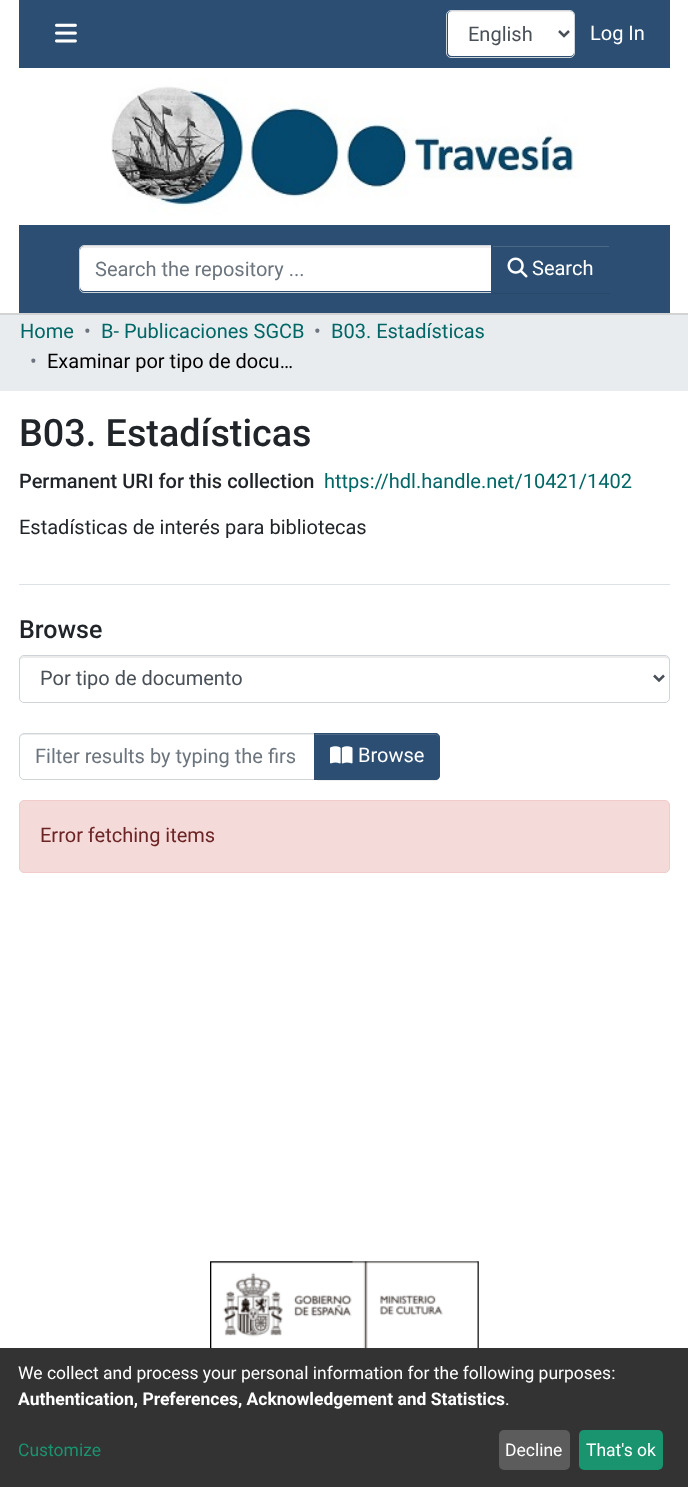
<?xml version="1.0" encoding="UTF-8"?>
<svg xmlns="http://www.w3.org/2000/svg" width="688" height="1487">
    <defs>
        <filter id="blur1" x="-50%" y="-200%" width="200%" height="500%"><feGaussianBlur stdDeviation="0.5"/></filter>
    </defs>
    <rect width="100%" height="100%" fill="#FFFFFF"/>
    <rect x="19" y="0" width="651" height="68" fill="#2B4E72"/>
    <image x="55" y="23" width="22" height="20" href="img_01.png"/>
    <rect x="448" y="11" width="126" height="45" rx="4" fill="#FFFFFF"/>
    <path d="M 451 12 H 570 C 572 12 574 14 574 16 C 574 6 553 11 550 11 H 472 C 469 11 448 6 448 16 C 448 14 449 12 451 12 Z" fill="#000000" fill-opacity="0.07"/>
    <rect x="446.5" y="10.5" width="128" height="47" rx="4.5" fill="none" stroke="#CED4DA"/>
    <path d="M 559 31 L 564 36 L 569 31" fill="none" stroke="#495057" stroke-width="2.5"/>
    <text x="468" y="41" font-family="Roboto" font-size="20" fill="#495057">English</text>
    <text x="590" y="40" font-family="Roboto" font-size="20" fill="#FFFFFF">Log In</text>
    <image x="111" y="78" width="470" height="137" href="img_02.png"/>
    <rect x="19" y="225" width="651" height="88" fill="#2B4E72"/>
    <path d="M 84 246 H 491 V 291 H 84 C 82 291 80 289 80 287 V 250 C 80 248 82 246 84 246 Z" fill="#FFFFFF"/>
    <path d="M 84 248 H 491 V 246 H 84 C 82 246 80 248 80 250 V 251 C 80 249 82 248 84 248 Z" fill="#000000" fill-opacity="0.07"/>
    <path d="M 84 245.5 H 492.5 V 292.5 H 84 C 81.5 292.5 79.5 290.5 79.5 288 V 250 C 79.5 247.5 81.5 245.5 84 245.5 Z" fill="none" stroke="#CED4DA"/>
    <text x="95" y="276" font-family="Roboto" font-size="20" fill="#6C757D">Search the repository ...</text>
    <rect x="491" y="246" width="119" height="48" fill="#000000" fill-opacity="0.07" filter="url(#blur1)"/>
    <rect x="491" y="245" width="119" height="48" fill="#2B4E72"/>
    <rect x="493" y="246" width="116" height="1" fill="#4B6987"/>
    <image x="507" y="257" width="21" height="21" href="img_03.png"/>
    <text x="532" y="275" font-family="Roboto" font-size="20" fill="#FFFFFF">Search</text>
    <rect x="0" y="313" width="688" height="2" fill="#D3D3D3"/>
    <rect x="0" y="315" width="688" height="76" fill="#E9ECEF"/>
    <text x="20" y="338" font-family="Roboto" font-size="20" fill="#006666">Home</text>
    <text x="84" y="338" font-family="Roboto" font-size="20" fill="#6C757D">•</text>
    <text x="101" y="338" font-family="Roboto" font-size="20" fill="#006666">B- Publicaciones SGCB</text>
    <text x="314" y="338" font-family="Roboto" font-size="20" fill="#6C757D">•</text>
    <text x="331" y="338" font-family="Roboto" font-size="20" fill="#006666">B03. Estadísticas</text>
    <text x="30" y="368" font-family="Roboto" font-size="20" fill="#6C757D">•</text>
    <text x="47" y="368" font-family="Roboto" font-size="20" fill="#000000">Examinar por tipo de docu…</text>
    <rect x="19" y="584" width="651" height="1" fill="#DEE2E6"/>
    <text x="19" y="446" font-family="Roboto" font-size="37.75" font-weight="500" fill="#212529">B03. Estadísticas</text>
    <text x="19" y="488" font-family="Roboto" font-size="20" font-weight="500" fill="#212529">Permanent URI for this collection</text>
    <text x="324" y="488" font-family="Roboto" font-size="20" fill="#006666">https://hdl.handle.net/10421/1402</text>
    <text x="19" y="534" font-family="Roboto" font-size="20" fill="#212529">Estadísticas de interés para bibliotecas</text>
    <text x="19" y="638" font-family="Roboto" font-size="25" font-weight="500" fill="#212529">Browse</text>
    <path d="M 24 658 H 665 C 667 658 669 659 669 661 C 669 658 668 656 665 656 H 24 L 21 657 L 20 658 V 661 C 20 659 22 658 24 658 Z" fill="#ECECEC"/>
    <rect x="19.5" y="655.5" width="650" height="47" rx="4.5" fill="none" stroke="#CED4DA"/>
    <path d="M 654 675.5 L 659 680.5 L 664 675.5" fill="none" stroke="#495057" stroke-width="2.5"/>
    <text x="40" y="685" font-family="Roboto" font-size="20" fill="#495057">Por tipo de documento</text>
    <path d="M 24 735 H 314 V 734 H 24 C 21 734 20 736 20 739 C 20 737 22 735 24 735 Z" fill="#ECECEC"/>
    <path d="M 24 733.5 H 314.5 V 779.5 H 24 C 21.5 779.5 19.5 777.5 19.5 775 V 738 C 19.5 735.5 21.5 733.5 24 733.5 Z" fill="none" stroke="#CED4DA"/>
    <text x="35" y="763" font-family="Roboto" font-size="20" fill="#6C757D">Filter results by typing the firs</text>
    <rect x="314" y="734" width="126" height="47" rx="5" fill="#000000" fill-opacity="0.07" filter="url(#blur1)"/>
    <path d="M 314 733 H 435 C 438 733 440 735 440 738 V 775 C 440 778 438 780 435 780 H 314 Z" fill="#2B4E72"/>
    <path d="M 315 735 H 435 C 437 735 439 737 439 739 V 738 C 439 736 437 734 435 734 H 315 Z" fill="#4B6987"/>
    <path d="M 314.5 733.5 H 435 C 437.5 733.5 439.5 735.5 439.5 738 V 775 C 439.5 777.5 437.5 779.5 435 779.5 H 314.5 Z" fill="none" stroke="#2B4E72"/>
    <image x="330" y="746" width="23" height="18" href="img_04.png"/>
    <text x="358" y="762" font-family="Roboto" font-size="20" fill="#FFFFFF">Browse</text>
    <rect x="19.5" y="800.5" width="650" height="72" rx="4.5" fill="#F5DADA" stroke="#F2CBCB"/>
    <text x="40" y="842" font-family="Roboto" font-size="20" fill="#6C2323">Error fetching items</text>
    <image x="210" y="1261" width="269" height="87" href="img_05.png"/>
    <rect x="0" y="1348" width="688" height="139" fill="#333333"/>
    <text x="18" y="1379" font-family="Roboto" font-size="17.5" fill="#FFFFFF">We collect and process your personal information for the following purposes:</text>
    <text x="18" y="1405" font-family="Roboto" font-size="17.5" font-weight="700" fill="#FFFFFF">Authentication, Preferences, Acknowledgement and Statistics</text>
    <text x="505" y="1405" font-family="Roboto" font-size="17.5" fill="#FFFFFF">.</text>
    <text x="18" y="1456" font-family="Roboto" font-size="17.5" fill="#1A936F">Customize</text>
    <rect x="499" y="1430" width="71" height="40" rx="5" fill="#5C5C5C"/>
    <text x="505" y="1456" font-family="Roboto" font-size="17.5" fill="#FFFFFF">Decline</text>
    <rect x="579" y="1430" width="84" height="40" rx="5" fill="#1A936F"/>
    <text x="586" y="1456" font-family="Roboto" font-size="17.5" fill="#FFFFFF">That's ok</text>
</svg>
